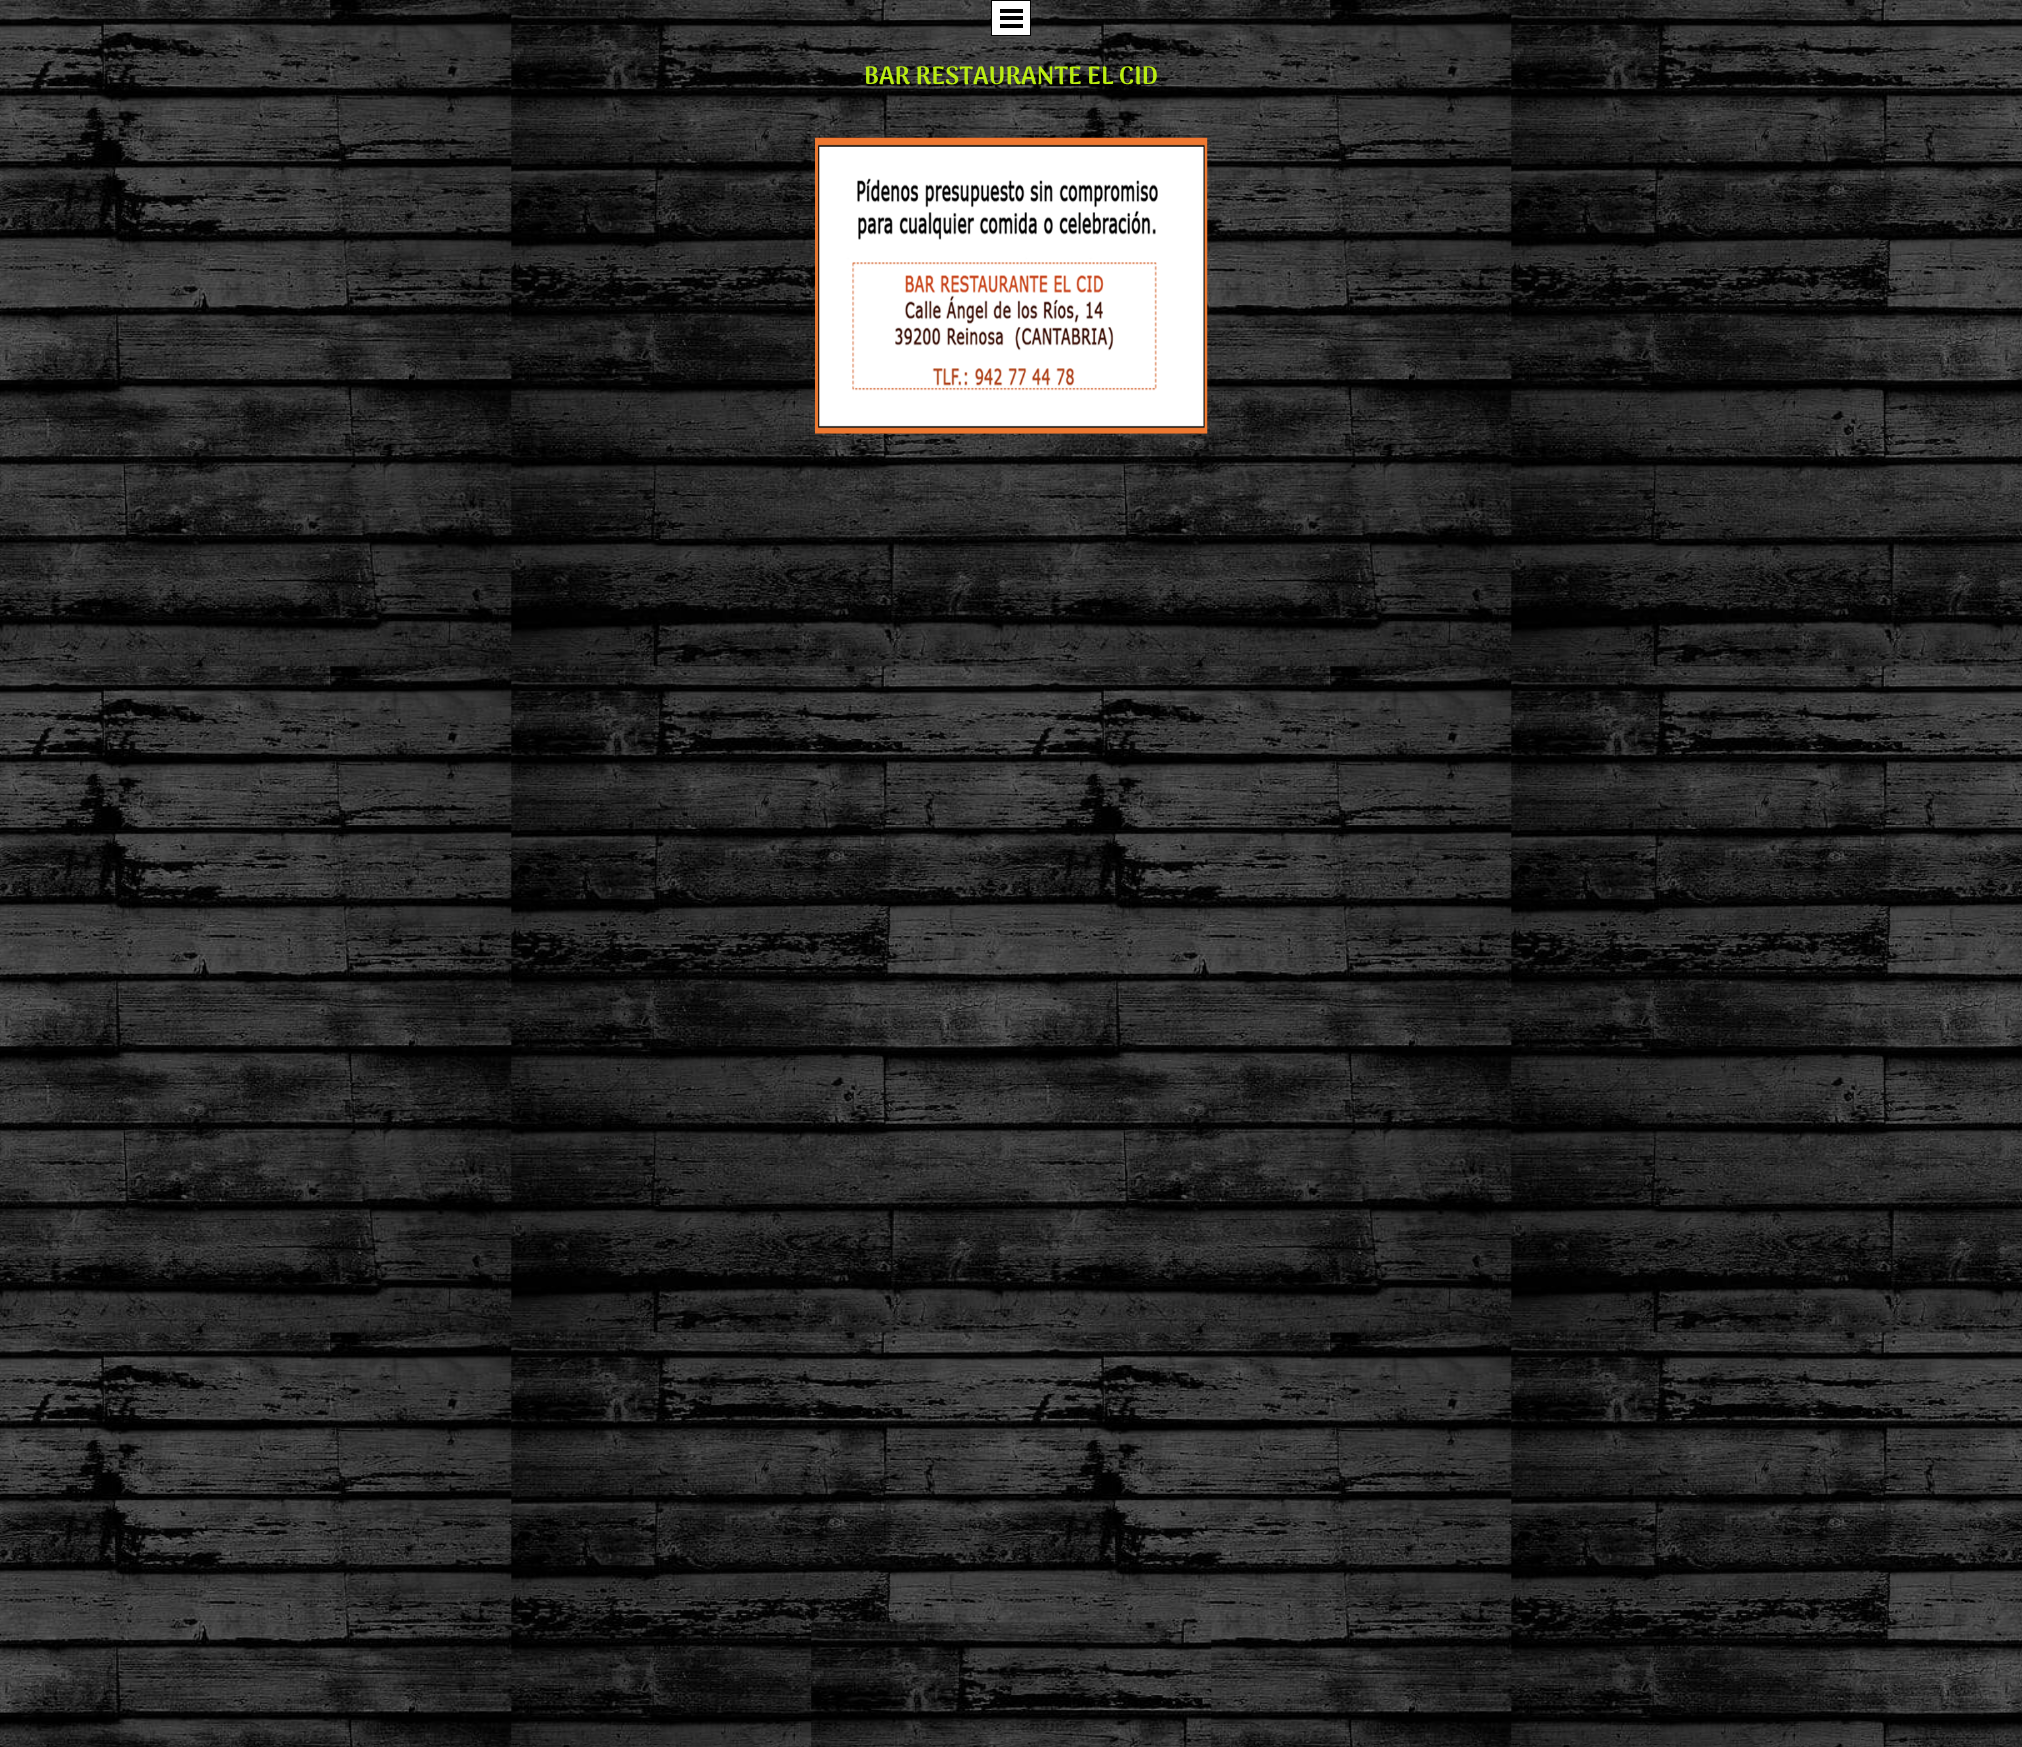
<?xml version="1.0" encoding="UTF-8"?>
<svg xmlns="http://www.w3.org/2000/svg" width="2022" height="1747">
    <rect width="100%" height="100%" fill="#FFFFFF"/>
    <image x="0" y="0" width="2022" height="125" href="img_01.png"/>
    <rect x="991.5" y="0.5" width="39" height="35" fill="#FFFFFF" stroke="#000000"/>
    <rect x="1000" y="9" width="23" height="4" fill="#000000"/>
    <rect x="1000" y="16" width="23" height="4" fill="#000000"/>
    <rect x="1000" y="24" width="23" height="4" fill="#000000"/>
    <text x="864" y="84" font-family="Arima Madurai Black" font-size="25" font-weight="900" fill="#BAED11">BAR RESTAURANTE EL CID</text>
    <image x="0" y="125" width="2022" height="1622" href="img_04.png"/>
    <image x="815" y="137" width="393" height="297" href="img_02.png"/>
    <image x="811" y="1622" width="401" height="125" href="img_03.png"/>
</svg>
